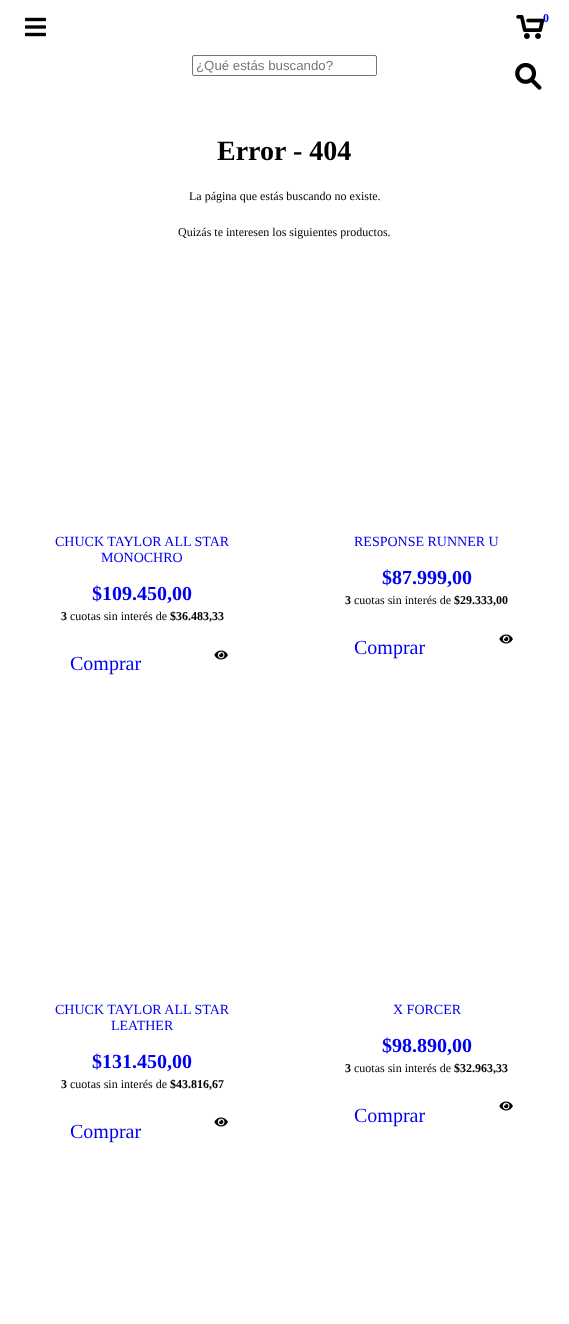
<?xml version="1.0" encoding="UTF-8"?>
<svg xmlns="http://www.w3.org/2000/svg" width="569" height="1324">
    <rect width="100%" height="100%" fill="#FFFFFF"/>
    <image x="25" y="17" width="21" height="20" href="img_01.png"/>
    <image x="516" y="15" width="29" height="24" href="img_02.png"/>
    <text x="543" y="22" font-family="Liberation Serif" font-size="12" font-weight="700" fill="#0000EE">0</text>
    <rect x="192.5" y="55.5" width="184" height="20" rx="1.5" fill="none" stroke="#767676"/>
    <text x="196" y="70" font-family="Liberation Sans" font-size="13.25" fill="#757575">¿Qué estás buscando?</text>
    <image x="515" y="63" width="27" height="27" href="img_03.png"/>
    <text x="217" y="160" font-family="Liberation Serif" font-size="28" font-weight="700" fill="#000000">Error - 404</text>
    <text x="189" y="200" font-family="Liberation Serif" font-size="12" fill="#000000">La página que estás buscando no existe.</text>
    <text x="178" y="236" font-family="Liberation Serif" font-size="12" fill="#000000">Quizás te interesen los siguientes productos.</text>
    <text x="55" y="546" font-family="Liberation Serif" font-size="14" fill="#0000EE">CHUCK TAYLOR ALL STAR</text>
    <text x="101" y="562" font-family="Liberation Serif" font-size="14" fill="#0000EE">MONOCHRO</text>
    <text x="92" y="600" font-family="Liberation Serif" font-size="20" font-weight="700" fill="#0000EE">$109.450,00</text>
    <text x="61" y="620" font-family="Liberation Serif" font-size="12" font-weight="700" fill="#000000">3</text>
    <text x="70" y="620" font-family="Liberation Serif" font-size="12" fill="#000000">cuotas sin interés de</text>
    <text x="170" y="620" font-family="Liberation Serif" font-size="12" font-weight="700" fill="#000000">$36.483,33</text>
    <image x="214" y="650" width="14" height="10" href="img_04.png"/>
    <text x="70" y="670" font-family="Liberation Serif" font-size="20" fill="#0000EE">Comprar</text>
    <text x="354" y="546" font-family="Liberation Serif" font-size="14" fill="#0000EE">RESPONSE RUNNER U</text>
    <text x="382" y="584" font-family="Liberation Serif" font-size="20" font-weight="700" fill="#0000EE">$87.999,00</text>
    <text x="345" y="604" font-family="Liberation Serif" font-size="12" font-weight="700" fill="#000000">3</text>
    <text x="354" y="604" font-family="Liberation Serif" font-size="12" fill="#000000">cuotas sin interés de</text>
    <text x="454" y="604" font-family="Liberation Serif" font-size="12" font-weight="700" fill="#000000">$29.333,00</text>
    <image x="499" y="634" width="14" height="10" href="img_04.png"/>
    <text x="354" y="654" font-family="Liberation Serif" font-size="20" fill="#0000EE">Comprar</text>
    <text x="55" y="1014" font-family="Liberation Serif" font-size="14" fill="#0000EE">CHUCK TAYLOR ALL STAR</text>
    <text x="111" y="1030" font-family="Liberation Serif" font-size="14" fill="#0000EE">LEATHER</text>
    <text x="92" y="1068" font-family="Liberation Serif" font-size="20" font-weight="700" fill="#0000EE">$131.450,00</text>
    <text x="61" y="1088" font-family="Liberation Serif" font-size="12" font-weight="700" fill="#000000">3</text>
    <text x="70" y="1088" font-family="Liberation Serif" font-size="12" fill="#000000">cuotas sin interés de</text>
    <text x="170" y="1088" font-family="Liberation Serif" font-size="12" font-weight="700" fill="#000000">$43.816,67</text>
    <image x="214" y="1117" width="14" height="10" href="img_04.png"/>
    <text x="70" y="1138" font-family="Liberation Serif" font-size="20" fill="#0000EE">Comprar</text>
    <text x="393" y="1014" font-family="Liberation Serif" font-size="14" fill="#0000EE">X FORCER</text>
    <text x="382" y="1052" font-family="Liberation Serif" font-size="20" font-weight="700" fill="#0000EE">$98.890,00</text>
    <text x="345" y="1072" font-family="Liberation Serif" font-size="12" font-weight="700" fill="#000000">3</text>
    <text x="354" y="1072" font-family="Liberation Serif" font-size="12" fill="#000000">cuotas sin interés de</text>
    <text x="454" y="1072" font-family="Liberation Serif" font-size="12" font-weight="700" fill="#000000">$32.963,33</text>
    <image x="499" y="1101" width="14" height="10" href="img_04.png"/>
    <text x="354" y="1122" font-family="Liberation Serif" font-size="20" fill="#0000EE">Comprar</text>
</svg>
